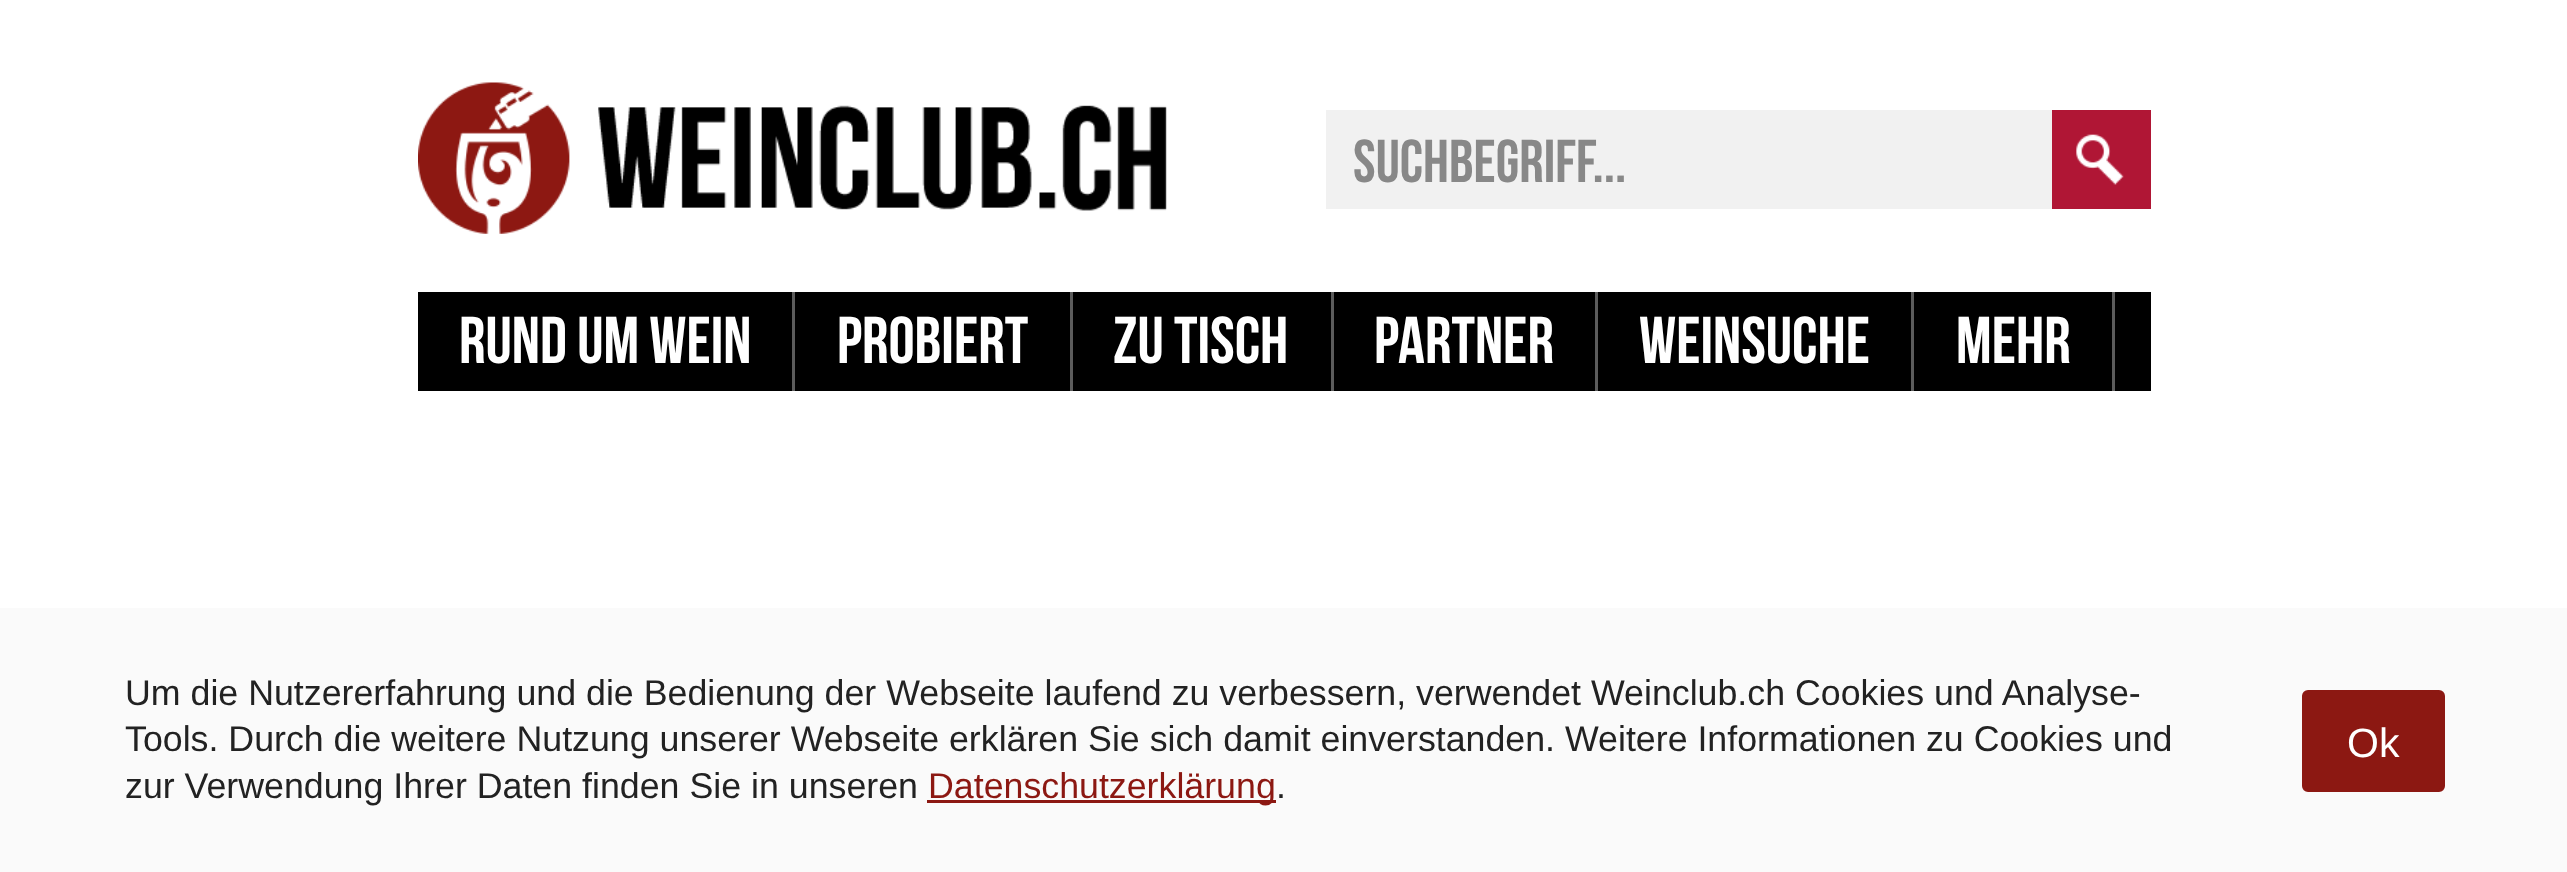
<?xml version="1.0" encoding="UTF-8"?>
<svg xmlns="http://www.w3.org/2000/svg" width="2567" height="872">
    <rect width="100%" height="100%" fill="#FFFFFF"/>
    <image x="418" y="82" width="749" height="152" href="img_01.png"/>
    <rect x="1326" y="110" width="726" height="99" fill="#F1F1F1"/>
    <text x="1353" y="182" font-family="Bebas Neue" font-size="60.5" fill="#888888">Suchbegriff...</text>
    <rect x="2052" y="110" width="99" height="99" fill="#B01635"/>
    <image x="2076" y="134" width="48" height="51" href="img_02.png"/>
    <rect x="418" y="292" width="1733" height="99" fill="#000000"/>
    <rect x="792" y="292" width="3" height="99" fill="#5C5C5C"/>
    <text x="459" y="363" font-family="Bebas Neue" font-size="66" fill="#FFFFFF">Rund um Wein</text>
    <rect x="1070" y="292" width="3" height="99" fill="#5C5C5C"/>
    <text x="837" y="363" font-family="Bebas Neue" font-size="66" fill="#FFFFFF">Probiert</text>
    <rect x="1331" y="292" width="3" height="99" fill="#5C5C5C"/>
    <text x="1113" y="363" font-family="Bebas Neue" font-size="66" fill="#FFFFFF">Zu Tisch</text>
    <rect x="1595" y="292" width="3" height="99" fill="#5C5C5C"/>
    <text x="1374" y="363" font-family="Bebas Neue" font-size="66" fill="#FFFFFF">Partner</text>
    <rect x="1911" y="292" width="3" height="99" fill="#5C5C5C"/>
    <text x="1639" y="363" font-family="Bebas Neue" font-size="66" fill="#FFFFFF">Weinsuche</text>
    <rect x="2112" y="292" width="3" height="99" fill="#5C5C5C"/>
    <text x="1956" y="363" font-family="Bebas Neue" font-size="66" fill="#FFFFFF">Mehr</text>
    <rect x="0" y="608" width="2567" height="264" fill="#FAFAFA"/>
    <text font-family="Liberation Sans" font-size="35.75" fill="#222222">
        <tspan x="125" y="705">Um die Nutzererfahrung und die Bedienung der Webseite laufend zu verbessern, verwendet Weinclub.ch Cookies und Analyse-</tspan>
        <tspan x="125" y="751">Tools. Durch die weitere Nutzung unserer Webseite erklären Sie sich damit einverstanden. Weitere Informationen zu Cookies und</tspan>
        <tspan x="125" y="798">zur Verwendung Ihrer Daten finden Sie in unseren</tspan>
    </text>
    <rect x="927" y="800" width="349" height="3" fill="#8C1812"/>
    <text x="928" y="798" font-family="Liberation Sans" font-size="35.75" fill="#8C1812">Datenschutzerklärung</text>
    <text x="1276" y="798" font-family="Liberation Sans" font-size="35.75" fill="#222222">.</text>
    <rect x="2303.5" y="691.5" width="140" height="99" rx="4.5" fill="#8C1812" stroke="#8C1812" stroke-width="3"/>
    <text x="2347" y="757" font-family="Liberation Sans" font-size="41" fill="#FFFFFF">Ok</text>
</svg>
